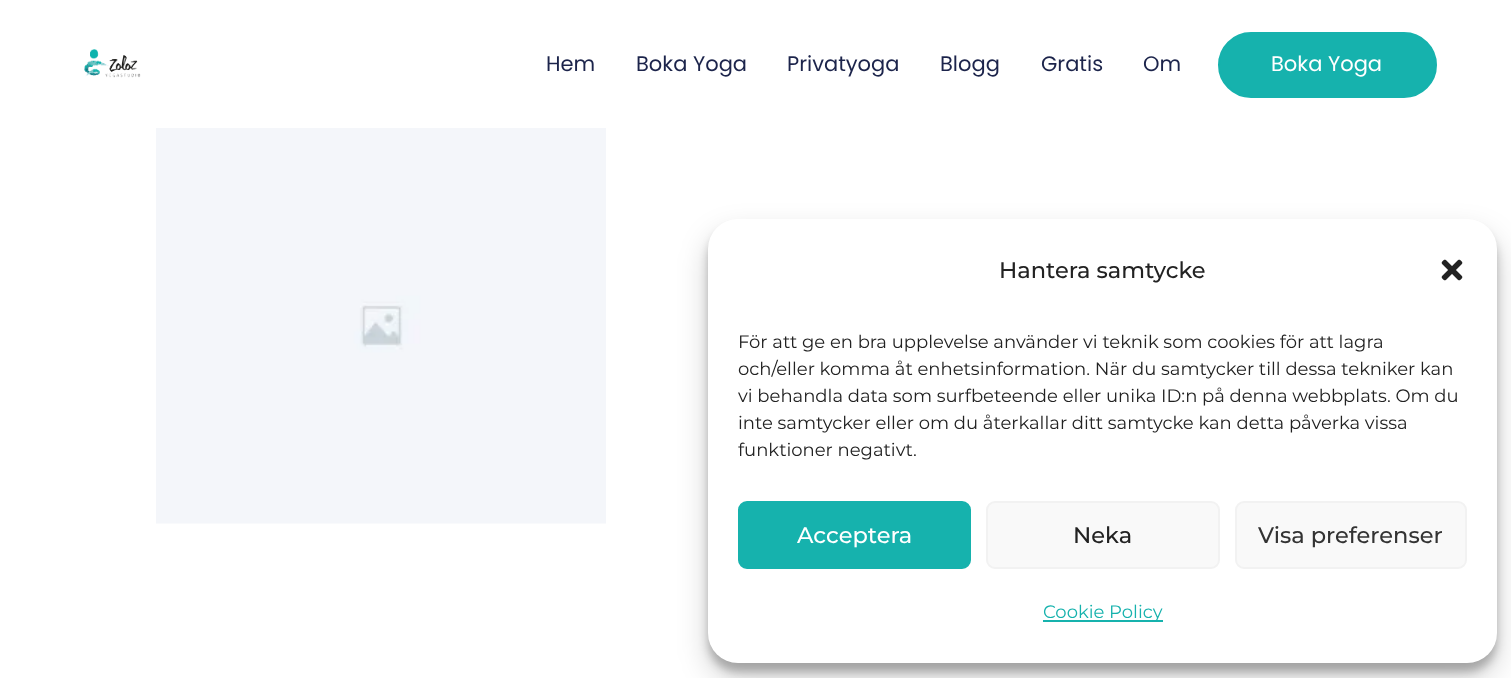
<?xml version="1.0" encoding="UTF-8"?>
<svg xmlns="http://www.w3.org/2000/svg" width="1511" height="678">
    <defs>
        <filter id="blur1" x="-50%" y="-200%" width="200%" height="500%"><feGaussianBlur stdDeviation="4.5"/></filter>
        <filter id="blur2" x="-50%" y="-200%" width="200%" height="500%"><feGaussianBlur stdDeviation="15"/></filter>
    </defs>
    <rect width="100%" height="100%" fill="#FFFFFF"/>
    <image x="84" y="49" width="57" height="29" href="img_01.png"/>
    <text x="546" y="71" font-family="Poppins" font-size="21" fill="#1C244B">Hem</text>
    <text x="636" y="71" font-family="Poppins" font-size="21" fill="#1C244B">Boka Yoga</text>
    <text x="787" y="71" font-family="Poppins" font-size="21" fill="#1C244B">Privatyoga</text>
    <text x="940" y="71" font-family="Poppins" font-size="21" fill="#1C244B">Blogg</text>
    <text x="1041" y="71" font-family="Poppins" font-size="21" fill="#1C244B">Gratis</text>
    <text x="1143" y="71" font-family="Poppins" font-size="21" fill="#1C244B">Om</text>
    <rect x="1219" y="33" width="217" height="64" rx="32" fill="#16B2AD" stroke="#16B2AD" stroke-width="2"/>
    <text x="1271" y="71" font-family="Poppins" font-size="21" fill="#FFFFFF">Boka Yoga</text>
    <image x="156" y="128" width="450" height="396" href="img_02.png"/>
    <rect x="708" y="228" width="789" height="444" rx="30" fill="#000000" fill-opacity="0.23" filter="url(#blur1)"/>
    <rect x="708" y="234" width="789" height="444" rx="30" fill="#000000" fill-opacity="0.19" filter="url(#blur2)"/>
    <rect x="708" y="219" width="789" height="444" rx="30" fill="#FFFFFF"/>
    <text x="999" y="278" font-family="Montserrat" font-size="22.5" font-weight="500" fill="#222222">Hantera samtycke</text>
    <image x="1441" y="259" width="22" height="22" href="img_03.png"/>
    <text font-family="Montserrat" font-size="18" fill="#222222">
        <tspan x="738" y="348">För att ge en bra upplevelse använder vi teknik som cookies för att lagra</tspan>
        <tspan x="738" y="375">och/eller komma åt enhetsinformation. När du samtycker till dessa tekniker kan</tspan>
        <tspan x="738" y="402">vi behandla data som surfbeteende eller unika ID:n på denna webbplats. Om du</tspan>
        <tspan x="738" y="429">inte samtycker eller om du återkallar ditt samtycke kan detta påverka vissa</tspan>
        <tspan x="738" y="456">funktioner negativt.</tspan>
    </text>
    <rect x="739" y="502" width="231" height="66" rx="8" fill="#16B2AD" stroke="#16B2AD" stroke-width="2"/>
    <text x="797" y="543" font-family="Montserrat" font-size="22.5" font-weight="500" fill="#FFFFFF">Acceptera</text>
    <rect x="987" y="502" width="232" height="66" rx="8" fill="#F9F9F9" stroke="#F2F2F2" stroke-width="2"/>
    <text x="1073" y="543" font-family="Montserrat" font-size="22.5" font-weight="500" fill="#222222">Neka</text>
    <rect x="1236" y="502" width="230" height="66" rx="8" fill="#F9F9F9" stroke="#F2F2F2" stroke-width="2"/>
    <text x="1258" y="543" font-family="Montserrat" font-size="22.5" font-weight="500" fill="#333333">Visa preferenser</text>
    <rect x="1043" y="620" width="120" height="2" fill="#16B2AD"/>
    <text x="1043" y="618" font-family="Montserrat" font-size="18" fill="#16B2AD">Cookie Policy</text>
</svg>
